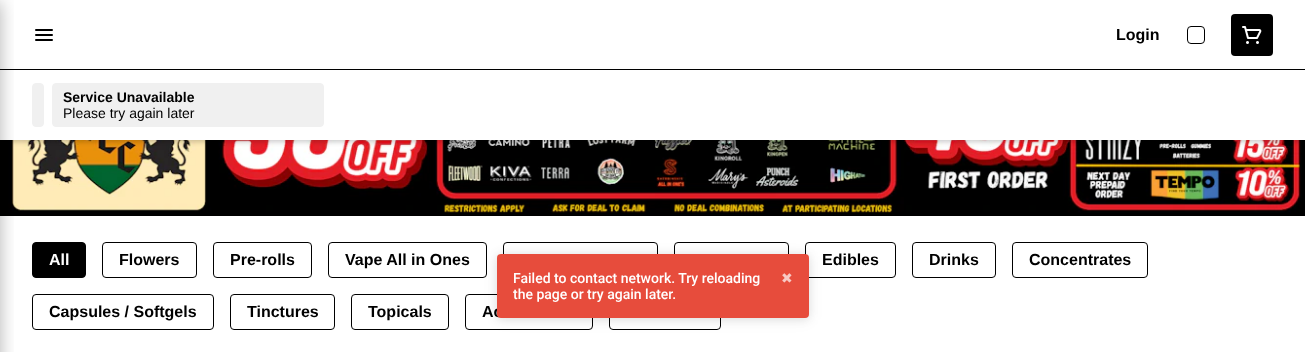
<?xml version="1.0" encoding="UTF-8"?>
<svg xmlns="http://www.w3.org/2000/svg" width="1305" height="352">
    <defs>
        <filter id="blur1" x="-50%" y="-200%" width="200%" height="500%"><feGaussianBlur stdDeviation="2.5"/></filter>
        <filter id="blur2" x="-50%" y="-200%" width="200%" height="500%"><feGaussianBlur stdDeviation="9"/></filter>
        <filter id="blur3" x="-50%" y="-200%" width="200%" height="500%"><feGaussianBlur stdDeviation="7.5"/></filter>
        <filter id="blur4" x="-50%" y="-200%" width="200%" height="500%"><feGaussianBlur stdDeviation="5"/></filter>
    </defs>
    <rect width="100%" height="100%" fill="#FFFFFF"/>
    <rect x="0" y="140" width="1305" height="76" fill="#000000"/>
    <image x="8" y="140" width="1294" height="73" href="img_02.png"/>
    <rect x="0" y="72" width="1305" height="70" fill="#000000" fill-opacity="0.2" filter="url(#blur1)"/>
    <rect x="1" y="68" width="1303" height="1" fill="#FFFFFF"/>
    <rect x="0" y="69" width="1305" height="1" fill="#000000"/>
    <rect x="0" y="70" width="1305" height="70" fill="#FFFFFF"/>
    <rect x="-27" y="2" width="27" height="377" fill="#000000" fill-opacity="0.3" filter="url(#blur2)"/>
    <rect x="35" y="34" width="18" height="2" rx="1" fill="#000000"/>
    <rect x="35" y="39" width="18" height="2" rx="1" fill="#000000"/>
    <rect x="35" y="29" width="18" height="2" rx="1" fill="#000000"/>
    <text x="1116" y="40" font-family="Liberation Sans" font-size="16" font-weight="700" fill="#000000">Login</text>
    <rect x="1187.5" y="26.5" width="17" height="17" rx="3.5" fill="none" stroke="#000000"/>
    <rect x="1231" y="14" width="42" height="42" rx="4" fill="#000000"/>
    <image x="1242" y="26" width="20" height="18" href="img_01.png"/>
    <rect x="32.5" y="83.5" width="11" height="43" rx="3.5" fill="#F0F0F0" stroke="#F0F0F0"/>
    <rect x="52.5" y="83.5" width="271" height="43" rx="3.5" fill="#F0F0F0" stroke="#F0F0F0"/>
    <text x="63" y="102" font-family="Liberation Sans" font-size="14" font-weight="700" fill="#000000">Service Unavailable</text>
    <text x="63" y="118" font-family="Liberation Sans" font-size="14" fill="#000000">Please try again later</text>
    <rect x="32.5" y="242.5" width="53" height="35" rx="3.5" fill="#000000" stroke="#000000"/>
    <text x="49" y="265" font-family="Liberation Sans" font-size="16" font-weight="700" fill="#FFFFFF">All</text>
    <rect x="102.5" y="242.5" width="94" height="35" rx="3.5" fill="none" stroke="#000000"/>
    <text x="119" y="265" font-family="Liberation Sans" font-size="16" font-weight="700" fill="#000000">Flowers</text>
    <rect x="213.5" y="242.5" width="98" height="35" rx="3.5" fill="none" stroke="#000000"/>
    <text x="230" y="265" font-family="Liberation Sans" font-size="16" font-weight="700" fill="#000000">Pre-rolls</text>
    <rect x="328.5" y="242.5" width="158" height="35" rx="3.5" fill="none" stroke="#000000"/>
    <text x="345" y="265" font-family="Liberation Sans" font-size="16" font-weight="700" fill="#000000">Vape All in Ones</text>
    <rect x="503.5" y="242.5" width="154" height="35" rx="3.5" fill="none" stroke="#000000"/>
    <rect x="674.5" y="242.5" width="114" height="35" rx="3.5" fill="none" stroke="#000000"/>
    <rect x="805.5" y="242.5" width="90" height="35" rx="3.5" fill="none" stroke="#000000"/>
    <text x="822" y="265" font-family="Liberation Sans" font-size="16" font-weight="700" fill="#000000">Edibles</text>
    <rect x="912.5" y="242.5" width="83" height="35" rx="3.5" fill="none" stroke="#000000"/>
    <text x="929" y="265" font-family="Liberation Sans" font-size="16" font-weight="700" fill="#000000">Drinks</text>
    <rect x="1012.5" y="242.5" width="135" height="35" rx="3.5" fill="none" stroke="#000000"/>
    <text x="1029" y="265" font-family="Liberation Sans" font-size="16" font-weight="700" fill="#000000">Concentrates</text>
    <rect x="32.5" y="294.5" width="181" height="35" rx="3.5" fill="none" stroke="#000000"/>
    <text x="49" y="317" font-family="Liberation Sans" font-size="16" font-weight="700" fill="#000000">Capsules / Softgels</text>
    <rect x="230.5" y="294.5" width="104" height="35" rx="3.5" fill="none" stroke="#000000"/>
    <text x="247" y="317" font-family="Liberation Sans" font-size="16" font-weight="700" fill="#000000">Tinctures</text>
    <rect x="351.5" y="294.5" width="97" height="35" rx="3.5" fill="none" stroke="#000000"/>
    <text x="368" y="317" font-family="Liberation Sans" font-size="16" font-weight="700" fill="#000000">Topicals</text>
    <rect x="465.5" y="294.5" width="127" height="35" rx="3.5" fill="none" stroke="#000000"/>
    <text x="482" y="317" font-family="Liberation Sans" font-size="16" font-weight="700" fill="#000000">Ac</text>
    <rect x="609.5" y="294.5" width="111" height="35" rx="3.5" fill="none" stroke="#000000"/>
    <rect x="497" y="256" width="312" height="64" rx="4" fill="#000000" fill-opacity="0.05" filter="url(#blur3)"/>
    <rect x="497" y="255" width="312" height="64" rx="4" fill="#000000" fill-opacity="0.1" filter="url(#blur4)"/>
    <rect x="497" y="254" width="312" height="64" rx="4" fill="#E74C3C"/>
    <text font-family="Roboto" font-size="14" font-weight="500" fill="#FFFFFF">
        <tspan x="513" y="283">Failed to contact network. Try reloading</tspan>
        <tspan x="513" y="299">the page or try again later.</tspan>
    </text>
    <text x="781" y="283" font-family="DejaVu Sans" font-size="14" fill="#F8C9C5">✖︎</text>
</svg>
